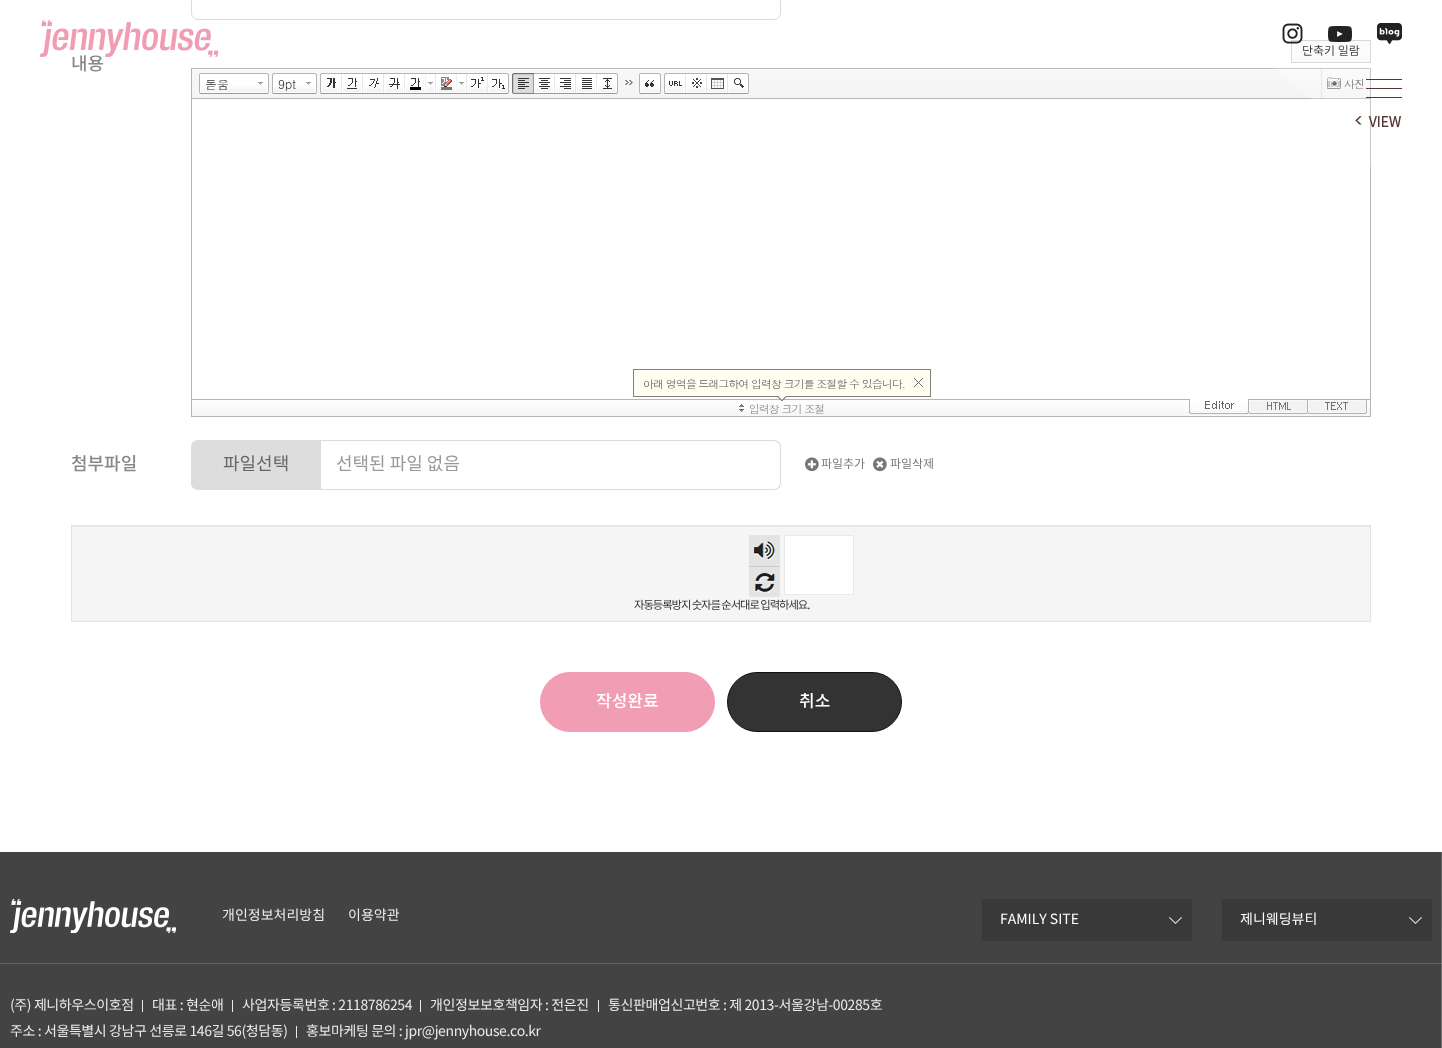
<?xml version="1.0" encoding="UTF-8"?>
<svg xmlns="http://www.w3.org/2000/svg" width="1442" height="1048">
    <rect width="100%" height="100%" fill="#FFFFFF"/>
    <rect x="1291.5" y="40.5" width="79" height="22" fill="#FAFAFA" stroke="#CCCCCC"/>
    <text x="1302" y="55" font-family="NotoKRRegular" font-size="12" fill="#000000">단축키 일람</text>
    <image x="191" y="68" width="1180" height="349" href="img_06.png"/>
    <rect x="72" y="527" width="1298" height="94" fill="#F5F5F5"/>
    <rect x="72" y="526" width="1298" height="1" fill="#E9E9E9"/>
    <rect x="71.5" y="525.5" width="1299" height="96" fill="none" stroke="#E3E3E3"/>
    <rect x="0" y="852" width="1442" height="196" fill="#434343"/>
    <rect x="0" y="963" width="1442" height="1" fill="#626262"/>
    <rect x="982" y="899" width="210" height="42" fill="#393939"/>
    <image x="1169" y="917" width="13" height="7" href="img_12.png"/>
    <rect x="1222" y="899" width="210" height="42" fill="#393939"/>
    <image x="1409" y="917" width="13" height="7" href="img_12.png"/>
    <text x="1240" y="924" font-family="NotoKRRegular" font-size="14" fill="#FFFFFF">제니웨딩뷰티</text>
    <path d="M 0 -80 V -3 L 1064 -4 C 1064 -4 1219 -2 1331 118 C 1388 179 1442 264 1442 406 L 1441 1048 H 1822 V -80 Z" fill="#FFFFFF" fill-opacity="0.25"/>
    <rect x="191.5" y="-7.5" width="589" height="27" rx="6.5" fill="none" stroke="#DCDCDC"/>
    <text x="71" y="70" font-family="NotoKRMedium" font-size="18" font-weight="500" fill="#888888">내용</text>
    <image x="40" y="19" width="179" height="38" href="img_01.png"/>
    <image x="1282" y="23" width="21" height="21" href="img_02.png"/>
    <image x="1328" y="26" width="24" height="16" href="img_03.png"/>
    <image x="1377" y="23" width="25" height="21" href="img_04.png"/>
    <image x="1355" y="79" width="47" height="48" href="img_05.png"/>
    <text x="71" y="470" font-family="NotoKRMedium" font-size="18" font-weight="500" fill="#888888">첨부파일</text>
    <path d="M 198 440 H 321 V 490 H 198 C 194 490 191 487 191 483 V 447 C 191 443 194 440 198 440 Z" fill="#DDDDDD"/>
    <text x="223" y="470" font-family="NotoKRRegular" font-size="18" fill="#666666">파일선택</text>
    <path d="M 321 440 H 774 C 778 440 781 443 781 447 V 483 C 781 487 778 490 774 490 H 321 Z M 321 441 H 774 C 777 441 780 444 780 447 V 483 C 780 486 777 489 774 489 H 321 Z" fill="#DCDCDC" fill-rule="evenodd"/>
    <text x="336" y="470" font-family="NotoKRRegular" font-size="18" fill="#999999">선택된 파일 없음</text>
    <image x="805" y="457" width="14" height="15" href="img_07.png"/>
    <text x="821" y="468" font-family="NotoKRRegular" font-size="12" fill="#777777">파일추가</text>
    <image x="873" y="457" width="14" height="15" href="img_08.png"/>
    <text x="890" y="468" font-family="NotoKRRegular" font-size="12" fill="#777777">파일삭제</text>
    <image x="749" y="535" width="31" height="31" href="img_09.png"/>
    <rect x="784.5" y="535.5" width="69" height="59" fill="#FFFFFF" stroke="#E9E9E9"/>
    <image x="749" y="567" width="31" height="30" href="img_10.png"/>
    <rect x="749" y="566" width="31" height="1" fill="#CCCCCC"/>
    <text x="634" y="609" font-family="NotoKRRegular" font-size="11.4" letter-spacing="-1.1" fill="#333333">자동등록방지 숫자를 순서대로 입력하세요.</text>
    <rect x="540.5" y="672.5" width="174" height="59" rx="29.5" fill="#F19EB4" stroke="#F19EB4"/>
    <text x="596" y="707" font-family="NotoKRMedium" font-size="17" font-weight="500" fill="#FFFFFF">작성완료</text>
    <rect x="727.5" y="672.5" width="174" height="59" rx="29.5" fill="#333333" stroke="#111111"/>
    <text x="799" y="707" font-family="NotoKRMedium" font-size="17" font-weight="500" fill="#FFFFFF">취소</text>
    <image x="10" y="899" width="166" height="35" href="img_11.png"/>
    <text x="222" y="920" font-family="NotoKRRegular" font-size="14" fill="#EBEBEB">개인정보처리방침</text>
    <text x="348" y="920" font-family="NotoKRRegular" font-size="14" fill="#EBEBEB">이용약관</text>
    <text x="1000" y="924" font-family="NotoKRRegular" font-size="14" fill="#FFFFFF">FAMILY SITE</text>
    <text x="10" y="1010" font-family="NotoKRRegular" font-size="14" letter-spacing="-0.4" fill="#EBEBEB">(주) 제니하우스이호점</text>
    <rect x="142" y="1000" width="1" height="12" fill="#EBEBEB"/>
    <text x="152" y="1010" font-family="NotoKRRegular" font-size="14" letter-spacing="-0.4" fill="#EBEBEB">대표 : 현순애</text>
    <rect x="232" y="1000" width="1" height="12" fill="#EBEBEB"/>
    <text x="242" y="1010" font-family="NotoKRRegular" font-size="14" letter-spacing="-0.4" fill="#EBEBEB">사업자등록번호 : 2118786254</text>
    <rect x="420" y="1000" width="1" height="12" fill="#EBEBEB"/>
    <text x="430" y="1010" font-family="NotoKRRegular" font-size="14" letter-spacing="-0.4" fill="#EBEBEB">개인정보보호책임자 : 전은진</text>
    <rect x="598" y="1000" width="1" height="12" fill="#EBEBEB"/>
    <text x="608" y="1010" font-family="NotoKRRegular" font-size="14" letter-spacing="-0.4" fill="#EBEBEB">통신판매업신고번호 : 제 2013-서울강남-00285호</text>
    <text x="10" y="1036" font-family="NotoKRRegular" font-size="14" letter-spacing="-0.4" fill="#EBEBEB">주소 : 서울특별시 강남구 선릉로 146길 56(청담동)</text>
    <rect x="296" y="1026" width="1" height="12" fill="#EBEBEB"/>
    <text x="306" y="1036" font-family="NotoKRRegular" font-size="14" letter-spacing="-0.4" fill="#EBEBEB">홍보마케팅 문의 : jpr@jennyhouse.co.kr</text>
</svg>
